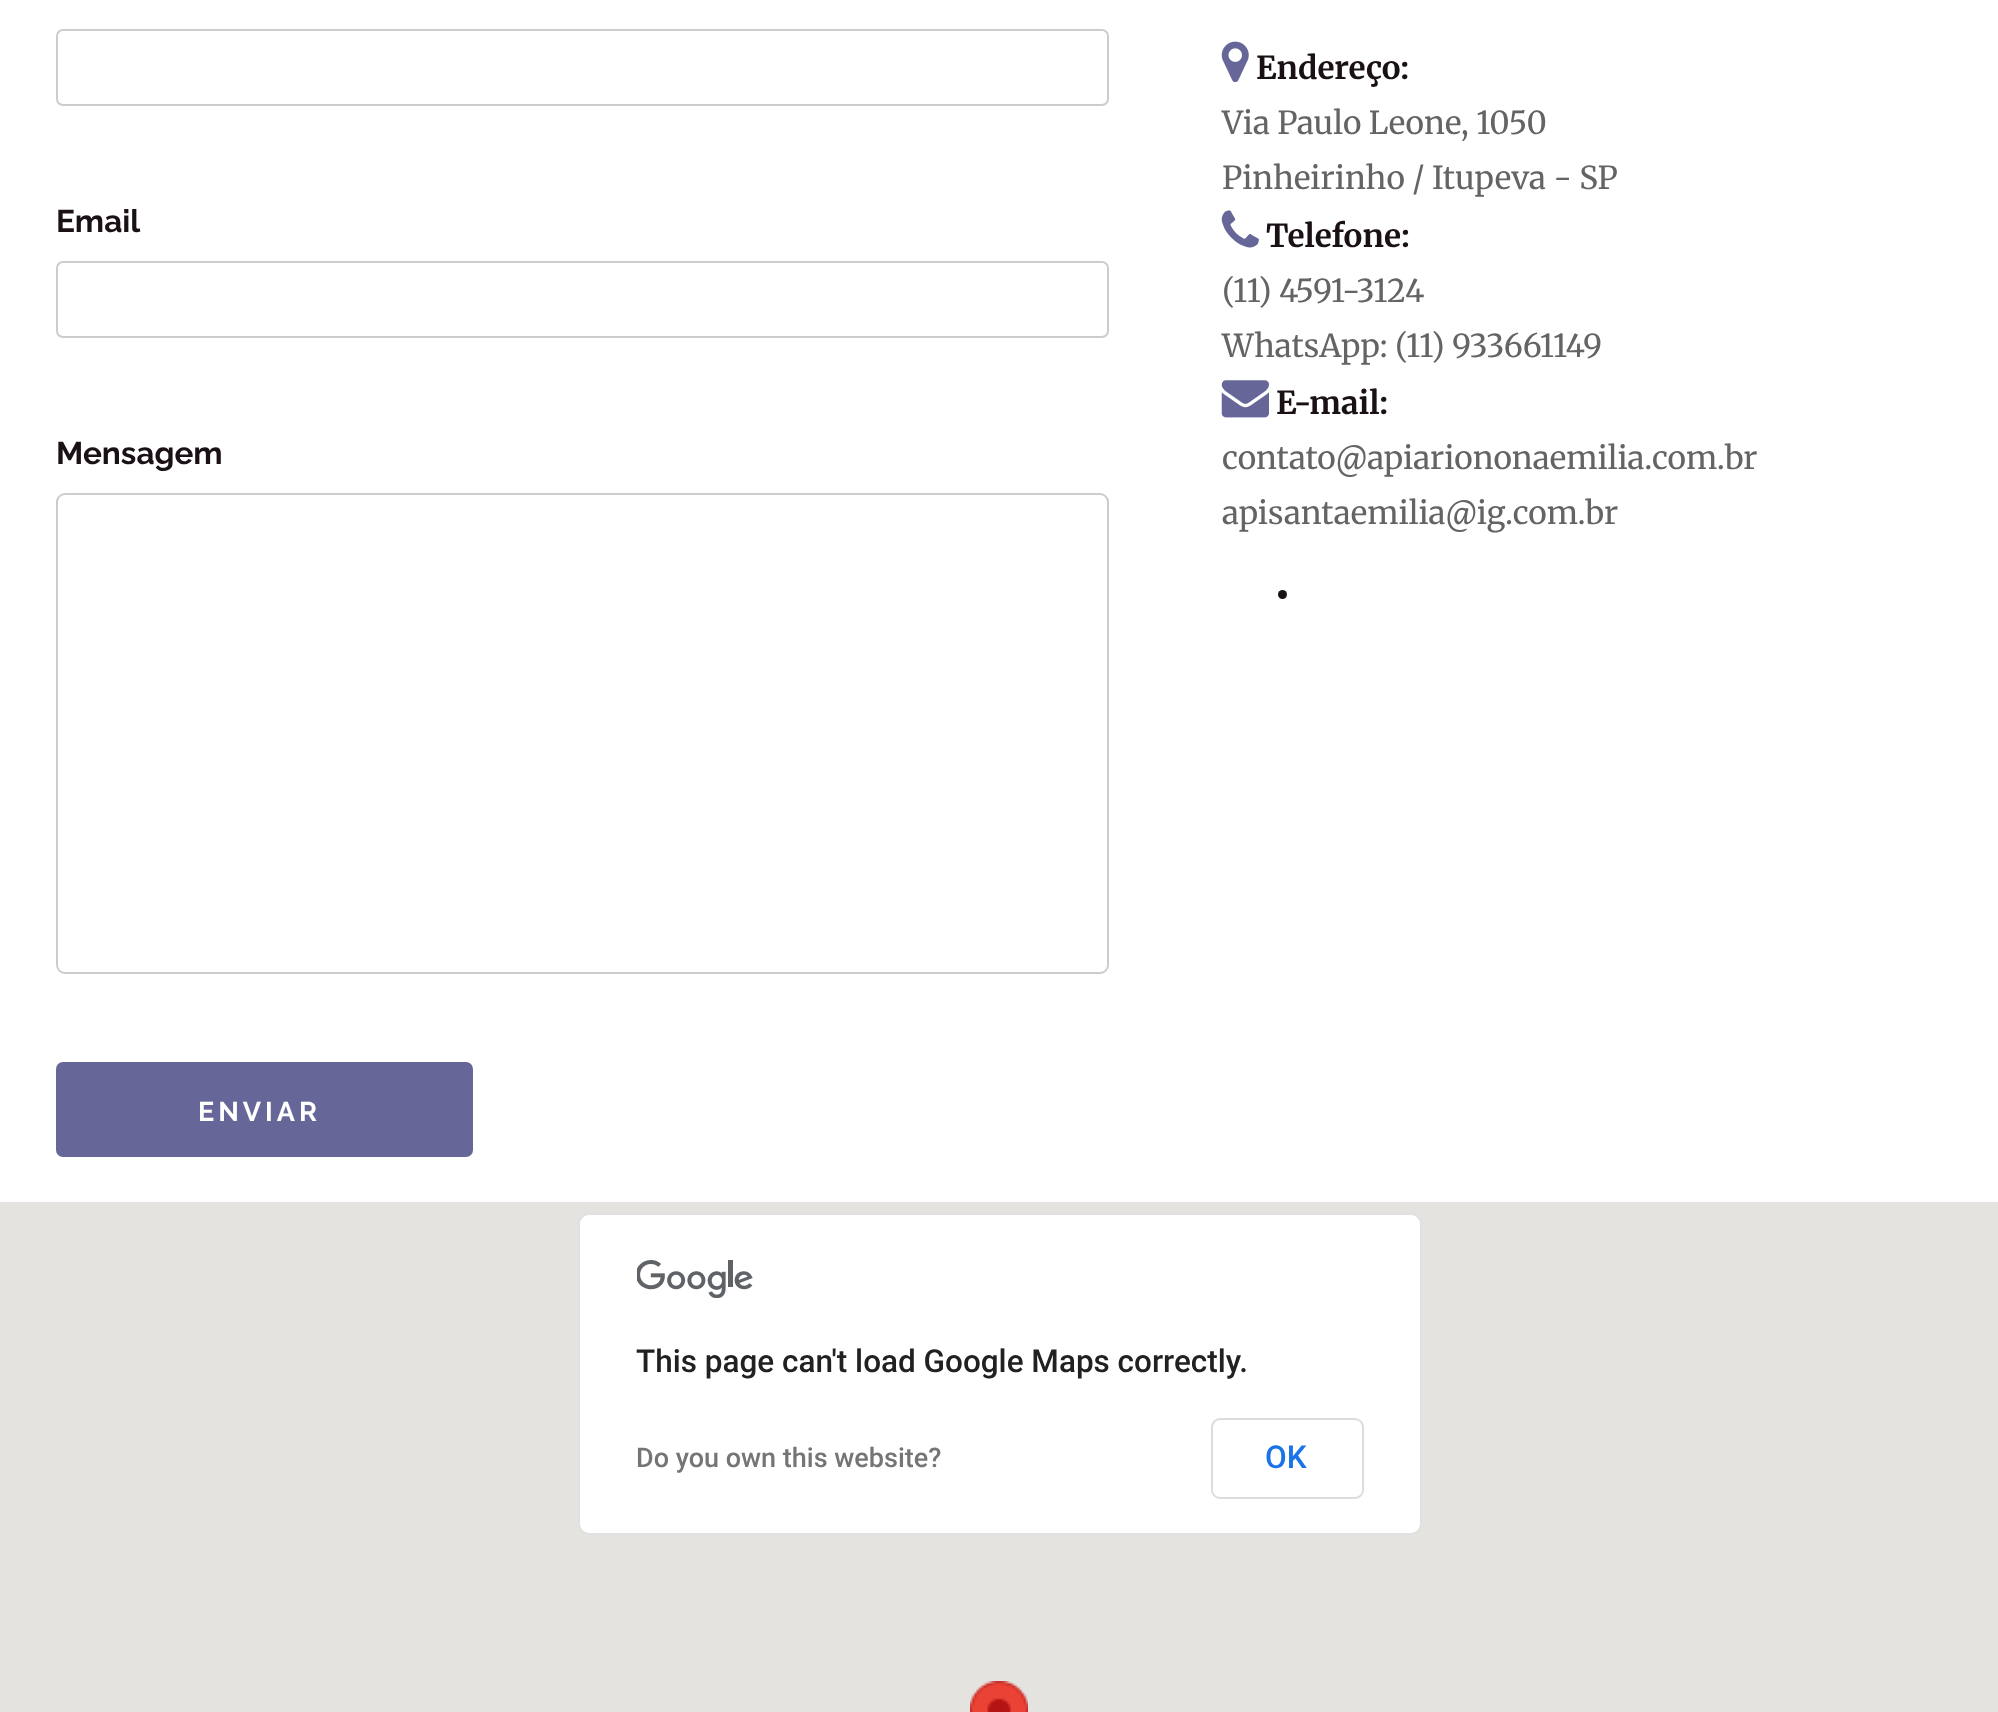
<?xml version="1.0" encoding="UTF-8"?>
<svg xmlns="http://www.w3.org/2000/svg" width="1998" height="1712">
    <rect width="100%" height="100%" fill="#FFFFFF"/>
    <rect x="57" y="30" width="1051" height="75" rx="6" fill="none" stroke="#CCCCCC" stroke-width="2"/>
    <text x="56" y="232" font-family="Raleway" font-size="31.5" font-weight="700" fill="#1A1117">Email</text>
    <rect x="57" y="262" width="1051" height="75" rx="6" fill="none" stroke="#CCCCCC" stroke-width="2"/>
    <text x="56" y="464" font-family="Raleway" font-size="31.5" font-weight="700" fill="#1A1117">Mensagem</text>
    <rect x="57" y="494" width="1051" height="479" rx="8" fill="none" stroke="#CCCCCC" stroke-width="2"/>
    <rect x="56" y="1062" width="417" height="95" rx="7" fill="#666699"/>
    <text x="198" y="1121" font-family="Raleway" font-size="27" font-weight="700" letter-spacing="4" fill="#FFFFFF">ENVIAR</text>
    <image x="1221" y="41" width="28" height="42" href="img_01.png"/>
    <text x="1256" y="79" font-family="Merriweather" font-size="31.5" font-weight="700" fill="#1A1117">Endereço:</text>
    <text font-family="Merriweather" font-size="31.5" fill="#646464">
        <tspan x="1222" y="134">Via Paulo Leone, 1050</tspan>
        <tspan x="1222" y="189">Pinheirinho / Itupeva - SP</tspan>
    </text>
    <image x="1221" y="210" width="38" height="38" href="img_02.png"/>
    <text x="1266" y="247" font-family="Merriweather" font-size="31.5" font-weight="700" fill="#1A1117">Telefone:</text>
    <text font-family="Merriweather" font-size="31.5" fill="#646464">
        <tspan x="1222" y="302">(11) 4591-3124</tspan>
        <tspan x="1222" y="357">WhatsApp: (11) 933661149</tspan>
    </text>
    <image x="1221" y="380" width="48" height="38" href="img_03.png"/>
    <text x="1276" y="414" font-family="Merriweather" font-size="31.5" font-weight="700" fill="#1A1117">E-mail:</text>
    <text font-family="Merriweather" font-size="31.5" fill="#646464">
        <tspan x="1222" y="469">contato@apiariononaemilia.com.br</tspan>
        <tspan x="1222" y="524">apisantaemilia@ig.com.br</tspan>
    </text>
    <circle cx="1282.5" cy="594.5" r="4.5" fill="#1A1117"/>
    <rect x="0" y="1202" width="1998" height="510" fill="#E5E3DF"/>
    <image x="970" y="1681" width="58" height="31" href="img_04.png"/>
    <rect x="578" y="1213" width="844" height="322" rx="11" fill="#FFFFFF"/>
    <rect x="579" y="1214" width="842" height="320" rx="10" fill="none" stroke="#000000" stroke-opacity="0.12" stroke-width="2"/>
    <image x="637" y="1260" width="116" height="38" href="img_05.png"/>
    <text x="636" y="1372" font-family="Roboto" font-size="31.5" font-weight="500" fill="#212121">This page can't load Google Maps correctly.</text>
    <text x="636" y="1467" font-family="Roboto" font-size="27" font-weight="500" fill="#757575">Do you own this website?</text>
    <rect x="1212" y="1419" width="151" height="79" rx="8" fill="none" stroke="#DADCE0" stroke-width="2"/>
    <text x="1265" y="1468" font-family="Roboto" font-size="31.5" font-weight="500" fill="#1A73E8">OK</text>
</svg>
